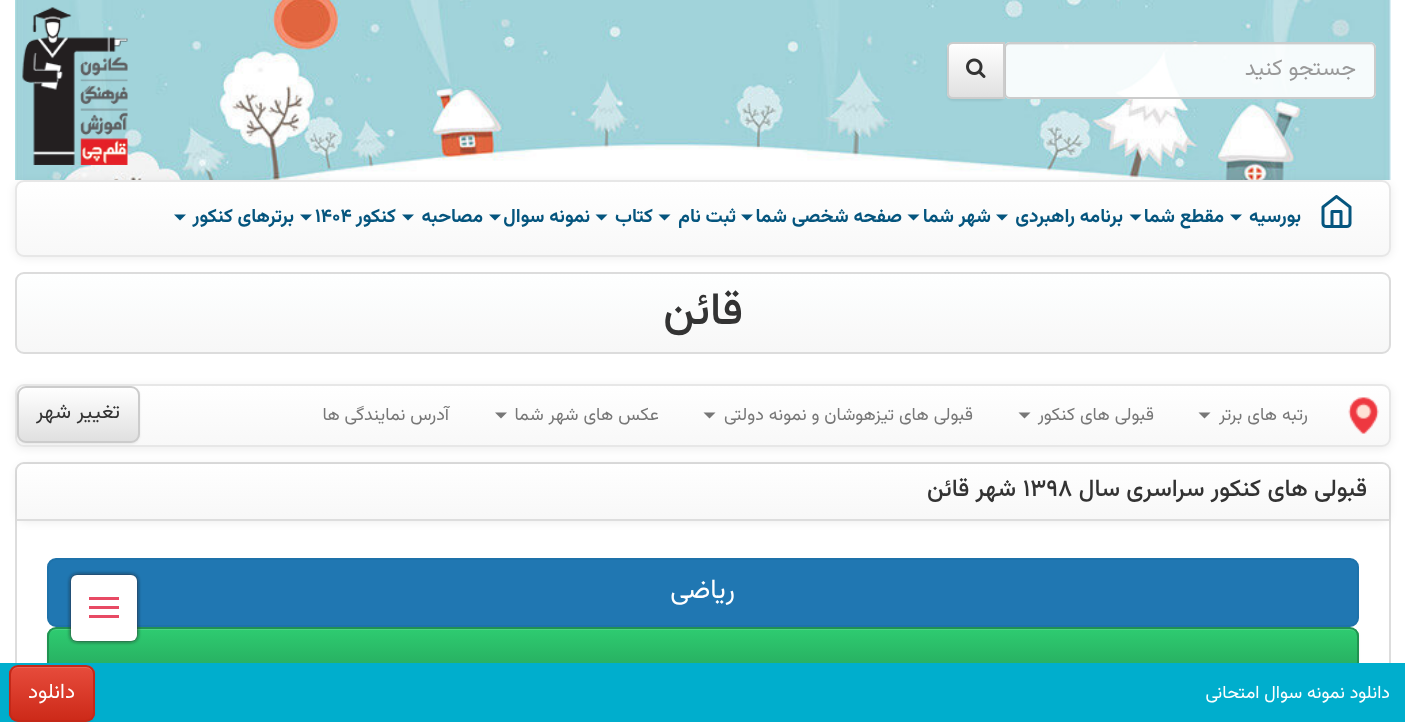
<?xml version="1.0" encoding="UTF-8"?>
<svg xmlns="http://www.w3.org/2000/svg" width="1405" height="722">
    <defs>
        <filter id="blur1" x="-50%" y="-200%" width="200%" height="500%"><feGaussianBlur stdDeviation="1"/></filter>
        <clipPath id="clip1"><path d="M 953 42 H 1005 V 99 H 953 C 949.5 99 947 96.5 947 93 V 48 C 947 44.5 949.5 42 953 42 Z"/></clipPath>
        <linearGradient id="g1" gradientUnits="userSpaceOnUse" x1="976" y1="43" x2="976" y2="98"><stop offset="0" stop-color="#FFFFFF"/><stop offset="1" stop-color="#E0E0E0"/></linearGradient>
        <filter id="blur2" x="-50%" y="-200%" width="200%" height="500%"><feGaussianBlur stdDeviation="4"/></filter>
        <clipPath id="clip2"><rect x="15" y="180" width="1376" height="77" rx="9"/></clipPath>
        <linearGradient id="g2" gradientUnits="userSpaceOnUse" x1="703" y1="181" x2="703" y2="255"><stop offset="0" stop-color="#FFFFFF"/><stop offset="1" stop-color="#F8F8F8"/></linearGradient>
        <clipPath id="clip3"><rect x="15" y="272" width="1376" height="82" rx="9"/></clipPath>
        <linearGradient id="g3" gradientUnits="userSpaceOnUse" x1="703" y1="273" x2="703" y2="353"><stop offset="0" stop-color="#FEFFFF"/><stop offset="1" stop-color="#F7F7F7"/></linearGradient>
        <clipPath id="clip4"><rect x="15" y="384" width="1376" height="63" rx="9"/></clipPath>
        <linearGradient id="g4" gradientUnits="userSpaceOnUse" x1="703" y1="385" x2="703" y2="446"><stop offset="0" stop-color="#FFFFFF"/><stop offset="1" stop-color="#F8F8F8"/></linearGradient>
        <clipPath id="clip5"><rect x="17" y="386" width="123" height="57" rx="9"/></clipPath>
        <linearGradient id="g5" gradientUnits="userSpaceOnUse" x1="78" y1="387" x2="78" y2="441"><stop offset="0" stop-color="#FFFFFF"/><stop offset="1" stop-color="#E0E0E0"/></linearGradient>
        <linearGradient id="g6" gradientUnits="userSpaceOnUse" x1="703" y1="463" x2="703" y2="519"><stop offset="0" stop-color="#FFFFFF"/><stop offset="1" stop-color="#F8F8F8"/></linearGradient>
        <clipPath id="clip6"><rect x="47" y="627" width="1312" height="69" rx="9"/></clipPath>
        <linearGradient id="g7" gradientUnits="userSpaceOnUse" x1="703" y1="628" x2="703" y2="695"><stop offset="0" stop-color="#2ECC71"/><stop offset="1" stop-color="#239A55"/></linearGradient>
        <filter id="blur3" x="-50%" y="-200%" width="200%" height="500%"><feGaussianBlur stdDeviation="2"/></filter>
        <clipPath id="clip7"><rect x="9" y="665" width="86" height="57" rx="9"/></clipPath>
        <linearGradient id="g8" gradientUnits="userSpaceOnUse" x1="52" y1="666" x2="52" y2="720"><stop offset="0" stop-color="#E74C3C"/><stop offset="1" stop-color="#CD2A19"/></linearGradient>
    </defs>
    <rect width="100%" height="100%" fill="#FFFFFF"/>
    <image x="15" y="0" width="1376" height="180" href="img_01.png"/>
    <rect x="1004" y="42" width="372" height="57" rx="6" fill="#FFFFFF" fill-opacity="0.9"/>
    <path d="M 1010 45 H 1370 C 1372 45 1374 47 1374 50 V 49 C 1374 46 1372 44 1369 44 H 1010 C 1007 44 1005 46 1005 49 V 50 C 1005 47 1007 45 1010 45 Z" fill="#000000" fill-opacity="0.07"/>
    <rect x="1005" y="43" width="370" height="55" rx="5" fill="none" stroke="#CCCCCC" stroke-width="2"/>
    <text x="1356" y="75" font-family="Vazirmatn" font-size="22.5" direction="rtl" fill="#999999">جستجو کنید</text>
    <rect x="947" y="44" width="58" height="57" rx="6" fill="#000000" fill-opacity="0.07" filter="url(#blur1)"/>
    <g clip-path="url(#clip1)">
        <rect x="947" y="44" width="56" height="54" fill="url(#g1)"/>
    </g>
    <path d="M 953 43 H 1004 V 98 H 953 C 950 98 948 96 948 93 V 48 C 948 45 950 43 953 43 Z" fill="none" stroke="#CCCCCC" stroke-width="2"/>
    <image x="966" y="58" width="20" height="20" href="img_02.png"/>
    <image x="22" y="7" width="106" height="158" href="img_03.png"/>
    <rect x="15" y="182" width="1376" height="76" rx="9" fill="#000000" fill-opacity="0.07" filter="url(#blur2)"/>
    <g clip-path="url(#clip2)">
        <rect x="15" y="182" width="1376" height="73" fill="url(#g2)"/>
    </g>
    <rect x="16" y="181" width="1374" height="75" rx="8" fill="none" stroke="#E7E7E7" stroke-width="2"/>
    <image x="1321" y="195" width="31" height="33" href="img_04.png"/>
    <text x="1301" y="222" font-family="Vazirmatn" font-size="19" font-weight="700" direction="rtl" fill="#05557E">بورسیه</text>
    <path d="M 1230 214.5 H 1242 L 1236 220.5 Z" fill="#05557E"/>
    <text x="1224" y="222" font-family="Vazirmatn" font-size="19" font-weight="700" direction="rtl" fill="#05557E">مقطع شما</text>
    <path d="M 1129.5 214.5 H 1141.5 L 1135.5 220.5 Z" fill="#05557E"/>
    <text x="1123" y="222" font-family="Vazirmatn" font-size="19" font-weight="700" direction="rtl" fill="#05557E">برنامه راهبردی</text>
    <path d="M 996 214.5 H 1008 L 1002 220.5 Z" fill="#05557E"/>
    <text x="991" y="222" font-family="Vazirmatn" font-size="19" font-weight="700" direction="rtl" fill="#05557E">شهر شما</text>
    <path d="M 907.5 214.5 H 919.5 L 913.5 220.5 Z" fill="#05557E"/>
    <text x="902" y="222" font-family="Vazirmatn" font-size="19" font-weight="700" direction="rtl" fill="#05557E">صفحه شخصی شما</text>
    <path d="M 741 214.5 H 753 L 747 220.5 Z" fill="#05557E"/>
    <text x="736" y="222" font-family="Vazirmatn" font-size="19" font-weight="700" direction="rtl" fill="#05557E">ثبت نام</text>
    <path d="M 658.5 214.5 H 670.5 L 664.5 220.5 Z" fill="#05557E"/>
    <text x="653" y="222" font-family="Vazirmatn" font-size="19" font-weight="700" direction="rtl" fill="#05557E">کتاب</text>
    <path d="M 595.5 214.5 H 607.5 L 601.5 220.5 Z" fill="#05557E"/>
    <text x="590" y="222" font-family="Vazirmatn" font-size="19" font-weight="700" direction="rtl" fill="#05557E">نمونه سوال</text>
    <path d="M 489 214.5 H 501 L 495 220.5 Z" fill="#05557E"/>
    <text x="483" y="222" font-family="Vazirmatn" font-size="19" font-weight="700" direction="rtl" fill="#05557E">مصاحبه</text>
    <path d="M 402 214.5 H 414 L 408 220.5 Z" fill="#05557E"/>
    <text x="396" y="222" font-family="Vazirmatn" font-size="19" font-weight="700" direction="rtl" fill="#05557E">کنکور</text>
    <text x="315" y="222" font-family="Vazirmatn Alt" font-size="19" font-weight="700" fill="#05557E">1404</text>
    <path d="M 300 214.5 H 312 L 306 220.5 Z" fill="#05557E"/>
    <text x="294" y="222" font-family="Vazirmatn" font-size="19" font-weight="700" direction="rtl" fill="#05557E">برترهای کنکور</text>
    <path d="M 174 214.5 H 186 L 180 220.5 Z" fill="#05557E"/>
    <g clip-path="url(#clip3)">
        <rect x="15" y="273" width="1376" height="80" fill="url(#g3)"/>
    </g>
    <rect x="16" y="273" width="1374" height="80" rx="8" fill="none" stroke="#DCDCDC" stroke-width="2"/>
    <text x="743" y="324" font-family="Vazirmatn" font-size="45" font-weight="500" direction="rtl" fill="#333333">قائن</text>
    <rect x="15" y="386" width="1376" height="63" rx="9" fill="#000000" fill-opacity="0.07" filter="url(#blur2)"/>
    <g clip-path="url(#clip4)">
        <rect x="15" y="386" width="1376" height="60" fill="url(#g4)"/>
    </g>
    <rect x="16" y="385" width="1374" height="61" rx="8" fill="none" stroke="#E7E7E7" stroke-width="2"/>
    <image x="1348" y="397" width="31" height="37" href="img_05.png"/>
    <text x="1308" y="420" font-family="Vazirmatn" font-size="18" direction="rtl" fill="#777777">رتبه های برتر</text>
    <path d="M 1198.5 412.5 H 1210.5 L 1204.5 418.5 Z" fill="#777777"/>
    <text x="1154" y="420" font-family="Vazirmatn" font-size="18" direction="rtl" fill="#777777">قبولی های کنکور</text>
    <path d="M 1018.5 412.5 H 1030.5 L 1024.5 418.5 Z" fill="#777777"/>
    <text x="973" y="420" font-family="Vazirmatn" font-size="18" direction="rtl" fill="#777777">قبولی های تیزهوشان و نمونه دولتی</text>
    <path d="M 703.5 412.5 H 715.5 L 709.5 418.5 Z" fill="#777777"/>
    <text x="659" y="420" font-family="Vazirmatn" font-size="18" direction="rtl" fill="#777777">عکس های شهر شما</text>
    <path d="M 495 412.5 H 507 L 501 418.5 Z" fill="#777777"/>
    <text x="449" y="420" font-family="Vazirmatn" font-size="18" direction="rtl" fill="#777777">آدرس نمایندگی ها</text>
    <rect x="17" y="387" width="123" height="57" rx="9" fill="#000000" fill-opacity="0.07" filter="url(#blur1)"/>
    <g clip-path="url(#clip5)">
        <rect x="17" y="387" width="123" height="54" fill="url(#g5)"/>
    </g>
    <rect x="18" y="387" width="121" height="55" rx="8" fill="none" stroke="#CCCCCC" stroke-width="2"/>
    <text x="120" y="418" font-family="Vazirmatn" font-size="21" direction="rtl" fill="#333333">تغییر شهر</text>
    <rect x="16" y="463" width="1374" height="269" rx="8" fill="none" stroke="#DDDDDD" stroke-width="2"/>
    <rect x="17" y="465" width="1372" height="57" rx="8" fill="#000000" fill-opacity="0.07" filter="url(#blur2)"/>
    <path d="M 25 464 H 1381 C 1385.5 464 1389 467.5 1389 472 V 519 H 17 V 472 C 17 467.5 20.5 464 25 464 Z" fill="url(#g6)"/>
    <rect x="17" y="519" width="1372" height="2" fill="#DDDDDD"/>
    <text x="1367" y="496" font-family="Vazirmatn" font-size="24" font-weight="500" direction="rtl" fill="#333333">قبولی های کنکور سراسری سال</text>
    <text x="1023" y="496" font-family="Vazirmatn Alt" font-size="24" font-weight="500" fill="#333333">1398</text>
    <text x="1016" y="496" font-family="Vazirmatn" font-size="24" font-weight="500" direction="rtl" fill="#333333">شهر قائن</text>
    <rect x="48" y="559" width="1310" height="67" rx="8" fill="#2077B2" stroke="#1E72AA" stroke-width="2"/>
    <text x="735" y="598" font-family="Vazirmatn" font-size="27" direction="rtl" fill="#FFFFFF">ریاضی</text>
    <rect x="47" y="629" width="1312" height="69" rx="9" fill="#000000" fill-opacity="0.07" filter="url(#blur1)"/>
    <g clip-path="url(#clip6)">
        <rect x="47" y="629" width="1312" height="34" fill="url(#g7)"/>
    </g>
    <path d="M 56 630 H 1350 C 1354 630 1358 633 1358 638 C 1358 633 1355 629 1350 629 H 56 C 51 629 48 633 48 638 C 48 633 51 630 56 630 Z" fill="#4DD385"/>
    <rect x="48" y="628" width="1310" height="67" rx="8" fill="none" stroke="#219251" stroke-width="2"/>
    <rect x="71" y="575" width="66" height="66" rx="6" fill="#231F20" filter="url(#blur3)"/>
    <rect x="71" y="575" width="66" height="66" rx="6" fill="#FFFFFF"/>
    <rect x="89" y="606" width="30" height="3" fill="#E84A64"/>
    <rect x="89" y="597" width="30" height="3" fill="#E84A64"/>
    <rect x="89" y="615" width="30" height="3" fill="#E84A64"/>
    <rect x="0" y="663" width="1405" height="59" fill="#00AECD"/>
    <text x="1390" y="698" font-family="Vazirmatn" font-size="18" direction="rtl" fill="#FFFFFF">دانلود نمونه سوال امتحانی</text>
    <rect x="9" y="666" width="86" height="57" rx="9" fill="#000000" fill-opacity="0.07" filter="url(#blur1)"/>
    <g clip-path="url(#clip7)">
        <rect x="9" y="666" width="86" height="54" fill="url(#g8)"/>
    </g>
    <path d="M 18 668 H 86 C 90 668 93 671 93 675 V 674 C 93 670 89 666 85 666 H 19 C 16 666 13 668 12 671 C 13 669 16 668 18 668 Z" fill="#FFFFFF" fill-opacity="0.15"/>
    <rect x="10" y="666" width="84" height="55" rx="8" fill="none" stroke="#C42818" stroke-width="2"/>
    <text x="75" y="698" font-family="Vazirmatn" font-size="21" direction="rtl" fill="#FFFFFF">دانلود</text>
</svg>
